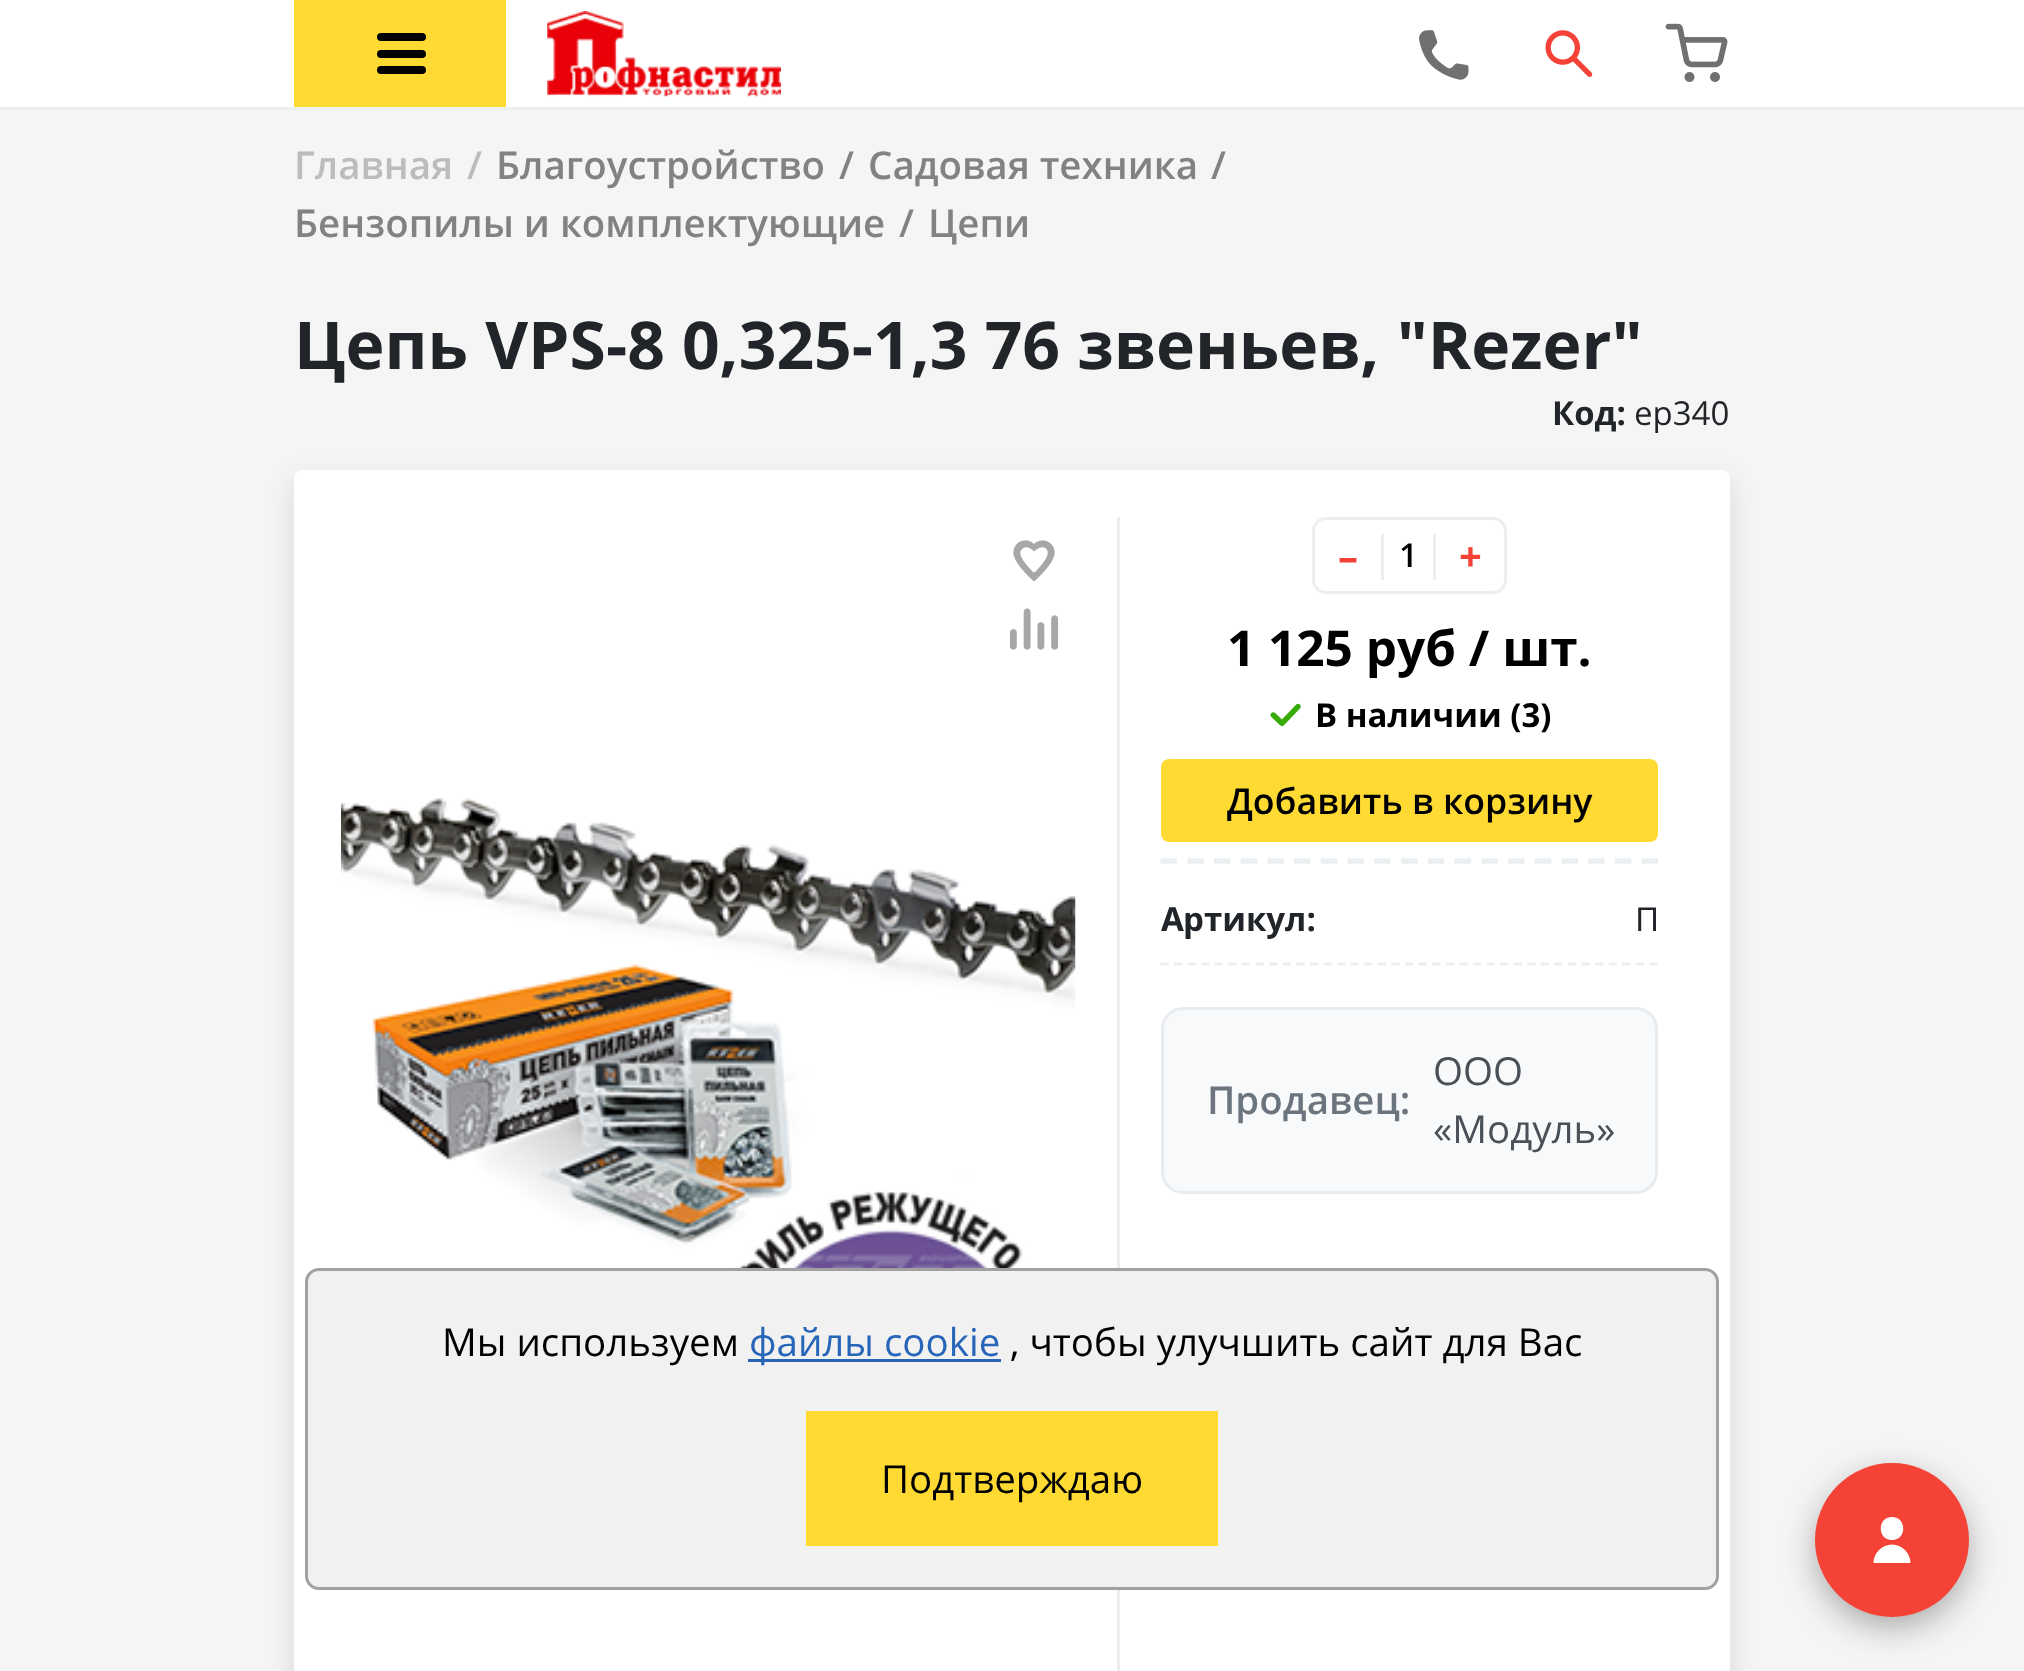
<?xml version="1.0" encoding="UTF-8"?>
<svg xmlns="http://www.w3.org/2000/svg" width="2024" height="1671">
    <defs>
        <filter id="blur1" x="-50%" y="-200%" width="200%" height="500%"><feGaussianBlur stdDeviation="14"/></filter>
        <filter id="blur2" x="-50%" y="-200%" width="200%" height="500%"><feGaussianBlur stdDeviation="16.5"/></filter>
    </defs>
    <rect width="100%" height="100%" fill="#F5F5F5"/>
    <rect x="0" y="0" width="2024" height="107" fill="#FFFFFF"/>
    <rect x="0" y="107" width="2024" height="3" fill="#ECEFF1"/>
    <rect x="294" y="0" width="212" height="107" fill="#FFDA33"/>
    <rect x="377" y="66" width="49" height="8" rx="4" fill="#000000"/>
    <rect x="377" y="33" width="49" height="8" rx="4" fill="#000000"/>
    <rect x="377" y="50" width="49" height="8" rx="4" fill="#000000"/>
    <image x="547" y="11" width="234" height="86" href="img_01.png"/>
    <image x="1419" y="30" width="50" height="50" href="img_02.png"/>
    <image x="1545" y="30" width="48" height="47" href="img_03.png"/>
    <image x="1665" y="23" width="63" height="59" href="img_04.png"/>
    <text x="294" y="179" font-family="Open Sans" font-size="38.5" font-weight="600" fill="#BCBCBC">Главная</text>
    <text x="467" y="179" font-family="Open Sans" font-size="38.5" font-weight="600" fill="#BCBCBC">/</text>
    <text x="496" y="179" font-family="Open Sans" font-size="38.5" font-weight="600" fill="#828282">Благоустройство</text>
    <text x="839" y="179" font-family="Open Sans" font-size="38.5" font-weight="600" fill="#828282">/</text>
    <text x="868" y="179" font-family="Open Sans" font-size="38.5" font-weight="600" fill="#828282">Садовая техника</text>
    <text x="1211" y="179" font-family="Open Sans" font-size="38.5" font-weight="600" fill="#828282">/</text>
    <text x="294" y="237" font-family="Open Sans" font-size="38.5" font-weight="600" fill="#828282">Бензопилы и комплектующие</text>
    <text x="899" y="237" font-family="Open Sans" font-size="38.5" font-weight="600" fill="#828282">/</text>
    <text x="928" y="237" font-family="Open Sans" font-size="38.5" font-weight="600" fill="#828282">Цепи</text>
    <text x="294" y="369" font-family="Open Sans" font-size="66" font-weight="700" fill="#212529">Цепь VPS-8 0,325-1,3 76 звеньев, "Rezer"</text>
    <text x="1552" y="425" font-family="Open Sans" font-size="33" font-weight="700" fill="#212529">Код:</text>
    <text x="1634" y="425" font-family="Open Sans" font-size="33" fill="#212529">ер340</text>
    <rect x="294" y="481" width="1436" height="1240" rx="8" fill="#000000" fill-opacity="0.12" filter="url(#blur1)"/>
    <rect x="294" y="470" width="1436" height="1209" rx="8" fill="#FFFFFF"/>
    <image x="1013" y="540" width="42" height="41" href="img_05.png"/>
    <image x="1009" y="608" width="50" height="42" href="img_06.png"/>
    <image x="341" y="798" width="735" height="470" href="img_07.png"/>
    <rect x="1117" y="517" width="3" height="1154" fill="#ECEFF1"/>
    <rect x="1313.5" y="518.5" width="192" height="74" rx="12.5" fill="none" stroke="#ECEFF1" stroke-width="3"/>
    <text x="1338" y="571" font-family="Open Sans" font-size="40" font-weight="700" fill="#F44336">–</text>
    <rect x="1433" y="534" width="3" height="46" fill="#ECEFF1"/>
    <rect x="1381" y="534" width="3" height="46" fill="#ECEFF1"/>
    <text x="1399" y="567" font-family="Open Sans" font-size="33" font-weight="600" fill="#000000">1</text>
    <text x="1459" y="571" font-family="Open Sans" font-size="40" font-weight="700" fill="#F44336">+</text>
    <text x="1227" y="666" font-family="Open Sans" font-size="49.5" font-weight="700" fill="#000000">1 125 руб / шт.</text>
    <image x="1270" y="703" width="31" height="23" href="img_08.png"/>
    <text x="1315" y="727" font-family="Open Sans" font-size="33" font-weight="700" fill="#000000">В наличии (3)</text>
    <path d="M 1160.5 861 H 1658" fill="none" stroke="#ECEFF1" stroke-width="5.5" stroke-dasharray="16.5 10.23"/>
    <rect x="1162.5" y="760.5" width="494" height="80" rx="6.5" fill="#FFDA33" stroke="#FFDA33" stroke-width="3"/>
    <text x="1227" y="814" font-family="Open Sans" font-size="35.75" font-weight="600" fill="#000000">Добавить в корзину</text>
    <path d="M 1160.5 964 H 1658" fill="none" stroke="#ECEFF1" stroke-width="2.8" stroke-dasharray="8.25 5.33"/>
    <text x="1161" y="931" font-family="Noto Sans" font-size="33" font-weight="700" fill="#212529">А</text>
    <text x="1183" y="931" font-family="Open Sans" font-size="33" font-weight="700" fill="#212529">ртикул:</text>
    <text x="1635" y="931" font-family="Noto Sans" font-size="33" fill="#212529">П</text>
    <rect x="1162.5" y="1008.5" width="494" height="184" rx="20.5" fill="#F8F9FA" stroke="#E9ECEF" stroke-width="3"/>
    <text x="1207" y="1114" font-family="Open Sans" font-size="38.5" font-weight="600" fill="#6C757D">Продавец:</text>
    <text font-family="Open Sans" font-size="38.5" fill="#495057">
        <tspan x="1433" y="1085">ООО</tspan>
        <tspan x="1433" y="1143">«Модуль»</tspan>
    </text>
    <rect x="305" y="1268" width="1414" height="322" rx="14" fill="#F1F1F1"/>
    <rect x="306.5" y="1269.5" width="1411" height="319" rx="12.5" fill="none" stroke="#000000" stroke-opacity="0.33" stroke-width="3"/>
    <text x="442" y="1356" font-family="Open Sans" font-size="38.5" fill="#000000">Мы используем</text>
    <rect x="748" y="1359" width="253" height="3" fill="#2765B9"/>
    <text x="749" y="1356" font-family="Open Sans" font-size="38.5" fill="#2765B9">файлы cookie</text>
    <text x="1010" y="1356" font-family="Open Sans" font-size="38.5" fill="#000000">, чтобы улучшить сайт для Вас</text>
    <rect x="806" y="1411" width="412" height="135" fill="#FFDA33"/>
    <text x="881" y="1493" font-family="Open Sans" font-size="38.5" fill="#000000">Подтверждаю</text>
    <rect x="1815" y="1474" width="154" height="154" rx="77" fill="#000000" fill-opacity="0.3" filter="url(#blur2)"/>
    <circle cx="1892" cy="1540" r="75.5" fill="#F44336" stroke="#F44336" stroke-width="3"/>
    <path d="M 1892 1540 C 1907 1540 1907 1517 1892 1517 C 1877 1517 1877 1540 1892 1540 Z M 1892 1544.5 C 1882 1544.5 1873.5 1553 1873.5 1563 H 1910.5 C 1910.5 1553 1902 1544.5 1892 1544.5 Z" fill="#FFFFFF"/>
</svg>
